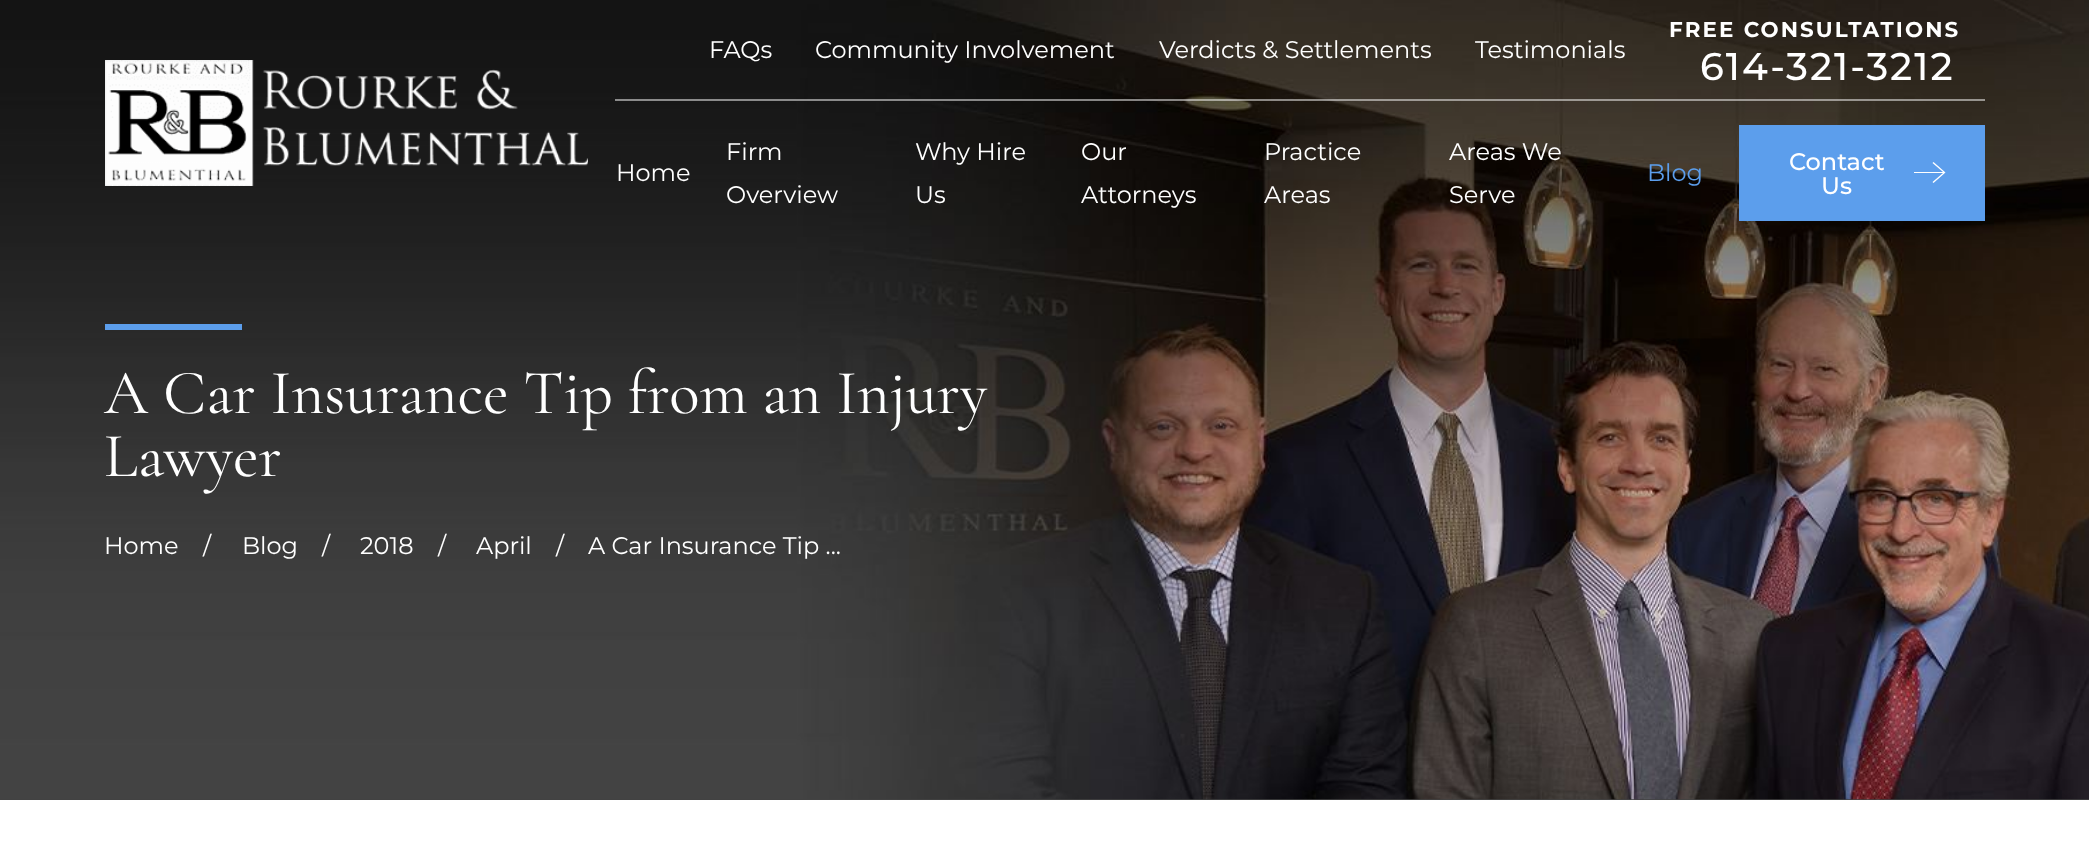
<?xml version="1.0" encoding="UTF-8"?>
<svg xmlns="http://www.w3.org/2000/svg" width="2089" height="860">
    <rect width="100%" height="100%" fill="#FFFFFF"/>
    <rect x="0" y="799" width="2089" height="1" fill="#434343"/>
    <image x="0" y="0" width="2089" height="800" href="img_02.png"/>
    <image x="105" y="60" width="483" height="126" href="img_01.png"/>
    <rect x="615" y="99" width="1370" height="2" fill="#FFFFFF" fill-opacity="0.5"/>
    <text x="709" y="58" font-family="Montserrat" font-size="24" fill="#FFFFFF">FAQs</text>
    <text x="815" y="58" font-family="Montserrat" font-size="24" fill="#FFFFFF">Community Involvement</text>
    <text x="1159" y="58" font-family="Montserrat" font-size="24" fill="#FFFFFF">Verdicts &amp; Settlements</text>
    <text x="1475" y="58" font-family="Montserrat" font-size="24" fill="#FFFFFF">Testimonials</text>
    <text x="1669" y="37" font-family="Montserrat" font-size="21.4" font-weight="700" letter-spacing="2.1" fill="#FFFFFF">FREE CONSULTATIONS</text>
    <text x="1700" y="80" font-family="Montserrat" font-size="38.5" font-weight="500" letter-spacing="2" fill="#FFFFFF">614-321-3212</text>
    <text x="616" y="181" font-family="Montserrat" font-size="24" fill="#FFFFFF">Home</text>
    <text font-family="Montserrat" font-size="24" fill="#FFFFFF">
        <tspan x="726" y="160">Firm</tspan>
        <tspan x="726" y="203">Overview</tspan>
    </text>
    <text font-family="Montserrat" font-size="24" fill="#FFFFFF">
        <tspan x="915" y="160">Why Hire</tspan>
        <tspan x="915" y="203">Us</tspan>
    </text>
    <text font-family="Montserrat" font-size="24" fill="#FFFFFF">
        <tspan x="1081" y="160">Our</tspan>
        <tspan x="1081" y="203">Attorneys</tspan>
    </text>
    <text font-family="Montserrat" font-size="24" fill="#FFFFFF">
        <tspan x="1264" y="160">Practice</tspan>
        <tspan x="1264" y="203">Areas</tspan>
    </text>
    <text font-family="Montserrat" font-size="24" fill="#FFFFFF">
        <tspan x="1449" y="160">Areas We</tspan>
        <tspan x="1449" y="203">Serve</tspan>
    </text>
    <text x="1647" y="181" font-family="Montserrat" font-size="24" fill="#5C9EEC">Blog</text>
    <rect x="1739" y="125" width="246" height="96" fill="#5C9EEC"/>
    <text x="1789" y="170" font-family="Montserrat" font-size="24" font-weight="500" fill="#FFFFFF">Contact</text>
    <text x="1821" y="194" font-family="Montserrat" font-size="24" font-weight="500" fill="#FFFFFF">Us</text>
    <path d="M 1932.5 182 L 1933.5 183 L 1945.5 172.5 L 1933.5 162 L 1932.5 163 L 1943 172 H 1914 V 173 H 1943 Z" fill="#FFFFFF"/>
    <rect x="105" y="324" width="137" height="6" fill="#5C9EEC"/>
    <text font-family="Cormorant Garamond" font-size="63.1" fill="#FFFFFF">
        <tspan x="104" y="413">A Car Insurance Tip from an Injury</tspan>
        <tspan x="104" y="476">Lawyer</tspan>
    </text>
    <text x="104" y="554" font-family="Montserrat" font-size="24" fill="#FFFFFF">Home</text>
    <text x="203" y="554" font-family="Montserrat" font-size="24" fill="#FFFFFF">/</text>
    <text x="242" y="554" font-family="Montserrat" font-size="24" fill="#FFFFFF">Blog</text>
    <text x="322" y="554" font-family="Montserrat" font-size="24" fill="#FFFFFF">/</text>
    <text x="360" y="554" font-family="Montserrat" font-size="24" fill="#FFFFFF">2018</text>
    <text x="438" y="554" font-family="Montserrat" font-size="24" fill="#FFFFFF">/</text>
    <text x="476" y="554" font-family="Montserrat" font-size="24" fill="#FFFFFF">April</text>
    <text x="556" y="554" font-family="Montserrat" font-size="24" fill="#FFFFFF">/</text>
    <text x="588" y="554" font-family="Montserrat" font-size="24" fill="#FFFFFF">A Car Insurance Tip ...</text>
</svg>
